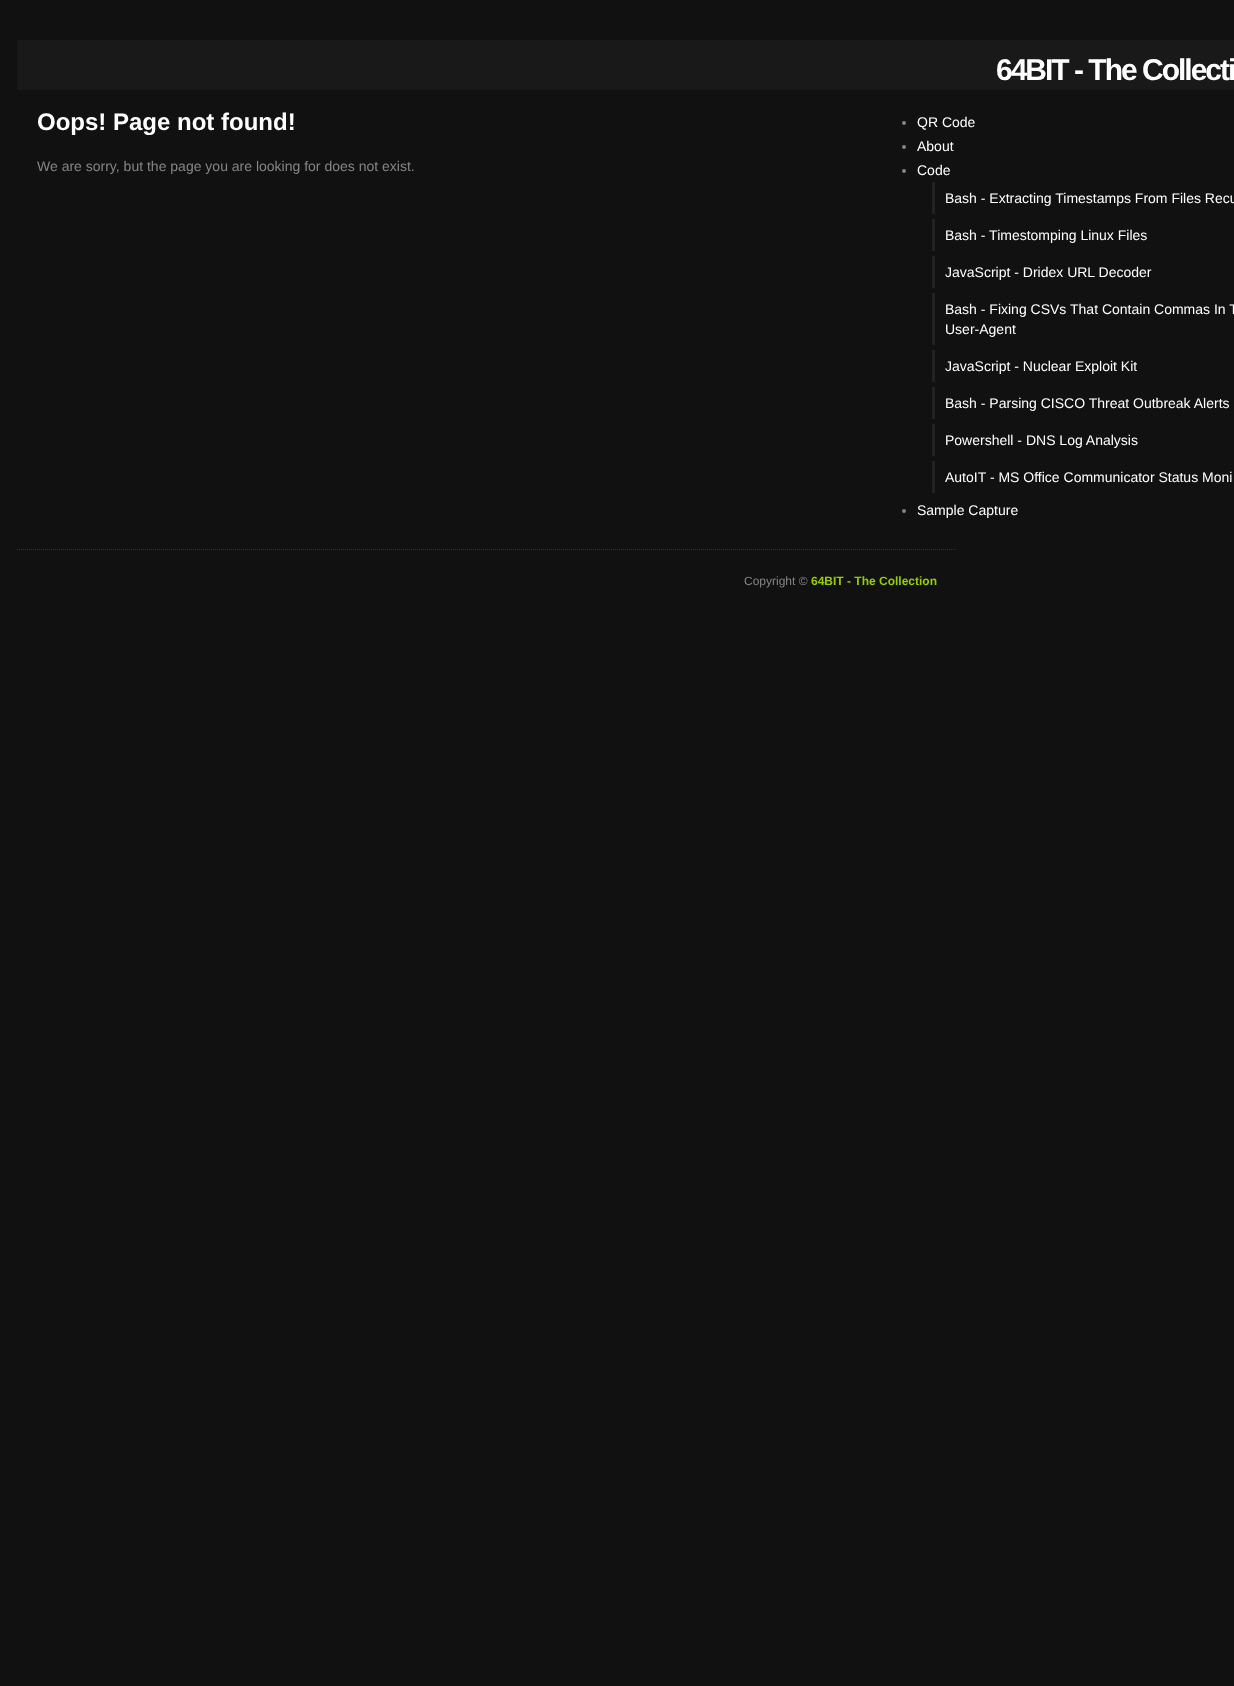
<?xml version="1.0" encoding="UTF-8"?>
<svg xmlns="http://www.w3.org/2000/svg" width="1234" height="1686">
    <rect width="100%" height="100%" fill="#111111"/>
    <rect x="17" y="40" width="1217" height="50" fill="#191919"/>
    <text x="996" y="80" font-family="Liberation Sans" font-size="30" font-weight="700" letter-spacing="-2" fill="#FFFFFF">64BIT - The Collecti</text>
    <text x="37" y="130" font-family="Liberation Sans" font-size="24" font-weight="700" fill="#FFFFFF">Oops! Page not found!</text>
    <text x="37" y="171" font-family="Liberation Sans" font-size="14" fill="#858585">We are sorry, but the page you are looking for does not exist.</text>
    <circle cx="904" cy="123" r="2" fill="#858585"/>
    <text x="917" y="127" font-family="Liberation Sans" font-size="14" fill="#FFFFFF">QR Code</text>
    <circle cx="904" cy="147" r="2" fill="#858585"/>
    <text x="917" y="151" font-family="Liberation Sans" font-size="14" fill="#FFFFFF">About</text>
    <circle cx="904" cy="171" r="2" fill="#858585"/>
    <text x="917" y="175" font-family="Liberation Sans" font-size="14" fill="#FFFFFF">Code</text>
    <rect x="932" y="182" width="3" height="32" fill="#222222"/>
    <text x="945" y="203" font-family="Liberation Sans" font-size="14" fill="#FFFFFF">Bash - Extracting Timestamps From Files Recu</text>
    <rect x="932" y="219" width="3" height="32" fill="#222222"/>
    <text x="945" y="240" font-family="Liberation Sans" font-size="14" fill="#FFFFFF">Bash - Timestomping Linux Files</text>
    <rect x="932" y="256" width="3" height="32" fill="#222222"/>
    <text x="945" y="277" font-family="Liberation Sans" font-size="14" fill="#FFFFFF">JavaScript - Dridex URL Decoder</text>
    <rect x="932" y="293" width="3" height="52" fill="#222222"/>
    <text font-family="Liberation Sans" font-size="14" fill="#FFFFFF">
        <tspan x="945" y="314">Bash - Fixing CSVs That Contain Commas In T</tspan>
        <tspan x="945" y="334">User-Agent</tspan>
    </text>
    <rect x="932" y="350" width="3" height="32" fill="#222222"/>
    <text x="945" y="371" font-family="Liberation Sans" font-size="14" fill="#FFFFFF">JavaScript - Nuclear Exploit Kit</text>
    <rect x="932" y="387" width="3" height="32" fill="#222222"/>
    <text x="945" y="408" font-family="Liberation Sans" font-size="14" fill="#FFFFFF">Bash - Parsing CISCO Threat Outbreak Alerts</text>
    <rect x="932" y="424" width="3" height="32" fill="#222222"/>
    <text x="945" y="445" font-family="Liberation Sans" font-size="14" fill="#FFFFFF">Powershell - DNS Log Analysis</text>
    <rect x="932" y="461" width="3" height="32" fill="#222222"/>
    <text x="945" y="482" font-family="Liberation Sans" font-size="14" fill="#FFFFFF">AutoIT - MS Office Communicator Status Moni</text>
    <circle cx="904" cy="511" r="2" fill="#858585"/>
    <text x="917" y="515" font-family="Liberation Sans" font-size="14" fill="#FFFFFF">Sample Capture</text>
    <path d="M 17 549.5 H 957" fill="none" stroke="#333333" stroke-dasharray="1 1"/>
    <text x="744" y="585" font-family="Liberation Sans" font-size="12" fill="#858585">Copyright ©</text>
    <text x="811" y="585" font-family="Liberation Sans" font-size="12" font-weight="700" fill="#99CC00">64BIT - The Collection</text>
</svg>
